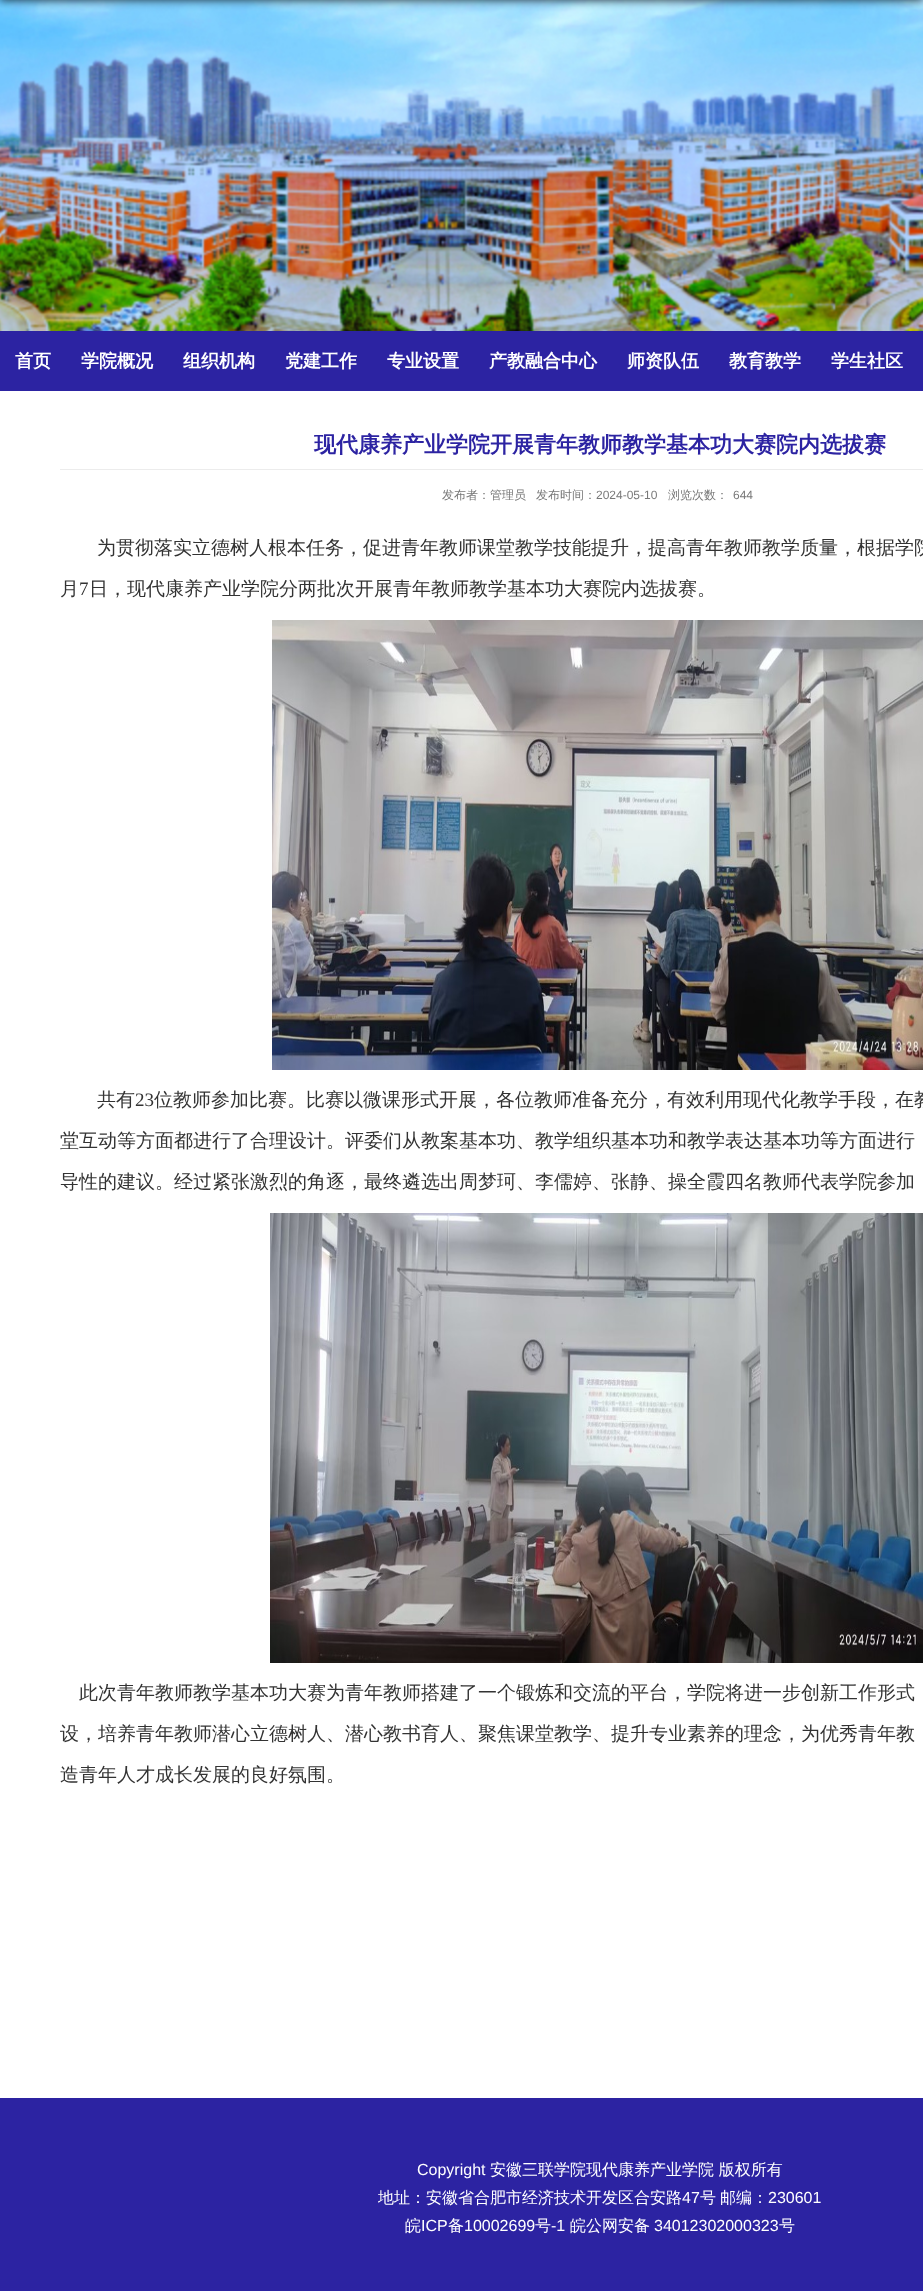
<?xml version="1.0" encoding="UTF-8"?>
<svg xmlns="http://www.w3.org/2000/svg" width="923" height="2291">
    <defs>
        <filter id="blur1" x="-50%" y="-200%" width="200%" height="500%"><feGaussianBlur stdDeviation="5"/></filter>
    </defs>
    <rect width="100%" height="100%" fill="#FFFFFF"/>
    <image x="0" y="0" width="923" height="331" href="img_01.png"/>
    <rect x="0" y="-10" width="923" height="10" fill="#000000" fill-opacity="0.8" filter="url(#blur1)"/>
    <rect x="0" y="331" width="923" height="60" fill="#2C23A2"/>
    <text x="15" y="367" font-family="WenQuanYi Zen Hei" font-size="18" font-weight="700" fill="#FFFFFF">首页</text>
    <text x="81" y="367" font-family="WenQuanYi Zen Hei" font-size="18" font-weight="700" fill="#FFFFFF">学院概况</text>
    <text x="183" y="367" font-family="WenQuanYi Zen Hei" font-size="18" font-weight="700" fill="#FFFFFF">组织机构</text>
    <text x="285" y="367" font-family="WenQuanYi Zen Hei" font-size="18" font-weight="700" fill="#FFFFFF">党建工作</text>
    <text x="387" y="367" font-family="WenQuanYi Zen Hei" font-size="18" font-weight="700" fill="#FFFFFF">专业设置</text>
    <text x="489" y="367" font-family="WenQuanYi Zen Hei" font-size="18" font-weight="700" fill="#FFFFFF">产教融合中心</text>
    <text x="627" y="367" font-family="WenQuanYi Zen Hei" font-size="18" font-weight="700" fill="#FFFFFF">师资队伍</text>
    <text x="729" y="367" font-family="WenQuanYi Zen Hei" font-size="18" font-weight="700" fill="#FFFFFF">教育教学</text>
    <text x="831" y="367" font-family="WenQuanYi Zen Hei" font-size="18" font-weight="700" fill="#FFFFFF">学生社区</text>
    <text x="314" y="452" font-family="WenQuanYi Zen Hei" font-size="22" font-weight="700" fill="#2C23A2">现代康养产业学院开展青年教师教学基本功大赛院内选拔赛</text>
    <rect x="60" y="469" width="863" height="1" fill="#ECECEC"/>
    <text x="442" y="499" font-family="WenQuanYi Zen Hei" font-size="12" font-weight="500" fill="#787878">发布者：管理员</text>
    <text x="536" y="499" font-family="WenQuanYi Zen Hei" font-size="12" font-weight="500" fill="#787878">发布时间：</text>
    <text x="596" y="499" font-family="Liberation Sans" font-size="12" fill="#787878">2024-05-10</text>
    <text x="668" y="499" font-family="WenQuanYi Zen Hei" font-size="12" font-weight="500" fill="#787878">浏览次数：</text>
    <text x="733" y="499" font-family="Liberation Sans" font-size="12" fill="#787878">644</text>
    <text x="97" y="554" font-family="WenQuanYi Zen Hei" font-size="19" font-weight="500" fill="#333333">为贯彻落实立德树人根本任务，促进青年教师课堂教学技能提升，提高青年教师教学质量，根据学院</text>
    <text x="60" y="595" font-family="WenQuanYi Zen Hei" font-size="19" font-weight="500" fill="#333333">月</text>
    <text x="79" y="595" font-family="Liberation Serif" font-size="19" fill="#333333">7</text>
    <text x="89" y="595" font-family="WenQuanYi Zen Hei" font-size="19" font-weight="500" fill="#333333">日，现代康养产业学院分两批次开展青年教师教学基本功大赛院内选拔赛。</text>
    <image x="272" y="620" width="651" height="450" href="img_02.png"/>
    <text x="97" y="1106" font-family="WenQuanYi Zen Hei" font-size="19" font-weight="500" fill="#333333">共有</text>
    <text x="135" y="1106" font-family="Liberation Serif" font-size="19" fill="#333333">23</text>
    <text x="154" y="1106" font-family="WenQuanYi Zen Hei" font-size="19" font-weight="500" fill="#333333">位教师参加比赛。比赛以微课形式开展，各位教师准备充分，有效利用现代化教学手段，在教</text>
    <text x="60" y="1147" font-family="WenQuanYi Zen Hei" font-size="19" font-weight="500" fill="#333333">堂互动等方面都进行了合理设计。评委们从教案基本功、教学组织基本功和教学表达基本功等方面进行</text>
    <text x="60" y="1188" font-family="WenQuanYi Zen Hei" font-size="19" font-weight="500" fill="#333333">导性的建议。经过紧张激烈的角逐，最终遴选出周梦珂、李儒婷、张静、操全霞四名教师代表学院参加</text>
    <image x="270" y="1213" width="653" height="450" href="img_03.png"/>
    <text x="79" y="1699" font-family="WenQuanYi Zen Hei" font-size="19" font-weight="500" fill="#333333">此次青年教师教学基本功大赛为青年教师搭建了一个锻炼和交流的平台，学院将进一步创新工作形式</text>
    <text x="60" y="1740" font-family="WenQuanYi Zen Hei" font-size="19" font-weight="500" fill="#333333">设，培养青年教师潜心立德树人、潜心教书育人、聚焦课堂教学、提升专业素养的理念，为优秀青年教</text>
    <text x="60" y="1781" font-family="WenQuanYi Zen Hei" font-size="19" font-weight="500" fill="#333333">造青年人才成长发展的良好氛围。</text>
    <rect x="0" y="2098" width="923" height="193" fill="#2C23A2"/>
    <text x="417" y="2175" font-family="Liberation Sans" font-size="16" fill="#FFFFFF">Copyright</text>
    <text x="490" y="2175" font-family="WenQuanYi Zen Hei" font-size="16" font-weight="500" fill="#FFFFFF">安徽三联学院现代康养产业学院 版权所有</text>
    <text x="378" y="2203" font-family="WenQuanYi Zen Hei" font-size="16" font-weight="500" fill="#FFFFFF">地址：安徽省合肥市经济技术开发区合安路</text>
    <text x="682" y="2203" font-family="Liberation Sans" font-size="16" fill="#FFFFFF">47</text>
    <text x="700" y="2203" font-family="WenQuanYi Zen Hei" font-size="16" font-weight="500" fill="#FFFFFF">号</text>
    <text x="720" y="2203" font-family="WenQuanYi Zen Hei" font-size="16" font-weight="500" fill="#FFFFFF">邮编：</text>
    <text x="768" y="2203" font-family="Liberation Sans" font-size="16" fill="#FFFFFF">230601</text>
    <text x="405" y="2231" font-family="WenQuanYi Zen Hei" font-size="16" font-weight="500" fill="#FFFFFF">皖</text>
    <text x="421" y="2231" font-family="Liberation Sans" font-size="16" fill="#FFFFFF">ICP</text>
    <text x="448" y="2231" font-family="WenQuanYi Zen Hei" font-size="16" font-weight="500" fill="#FFFFFF">备</text>
    <text x="464" y="2231" font-family="Liberation Sans" font-size="16" fill="#FFFFFF">10002699</text>
    <text x="535" y="2231" font-family="WenQuanYi Zen Hei" font-size="16" font-weight="500" fill="#FFFFFF">号</text>
    <text x="551" y="2231" font-family="Liberation Sans" font-size="16" fill="#FFFFFF">-1</text>
    <text x="570" y="2231" font-family="WenQuanYi Zen Hei" font-size="16" font-weight="500" fill="#FFFFFF">皖公网安备</text>
    <text x="654" y="2231" font-family="Liberation Sans" font-size="16" fill="#FFFFFF">34012302000323</text>
    <text x="779" y="2231" font-family="WenQuanYi Zen Hei" font-size="16" font-weight="500" fill="#FFFFFF">号</text>
</svg>
